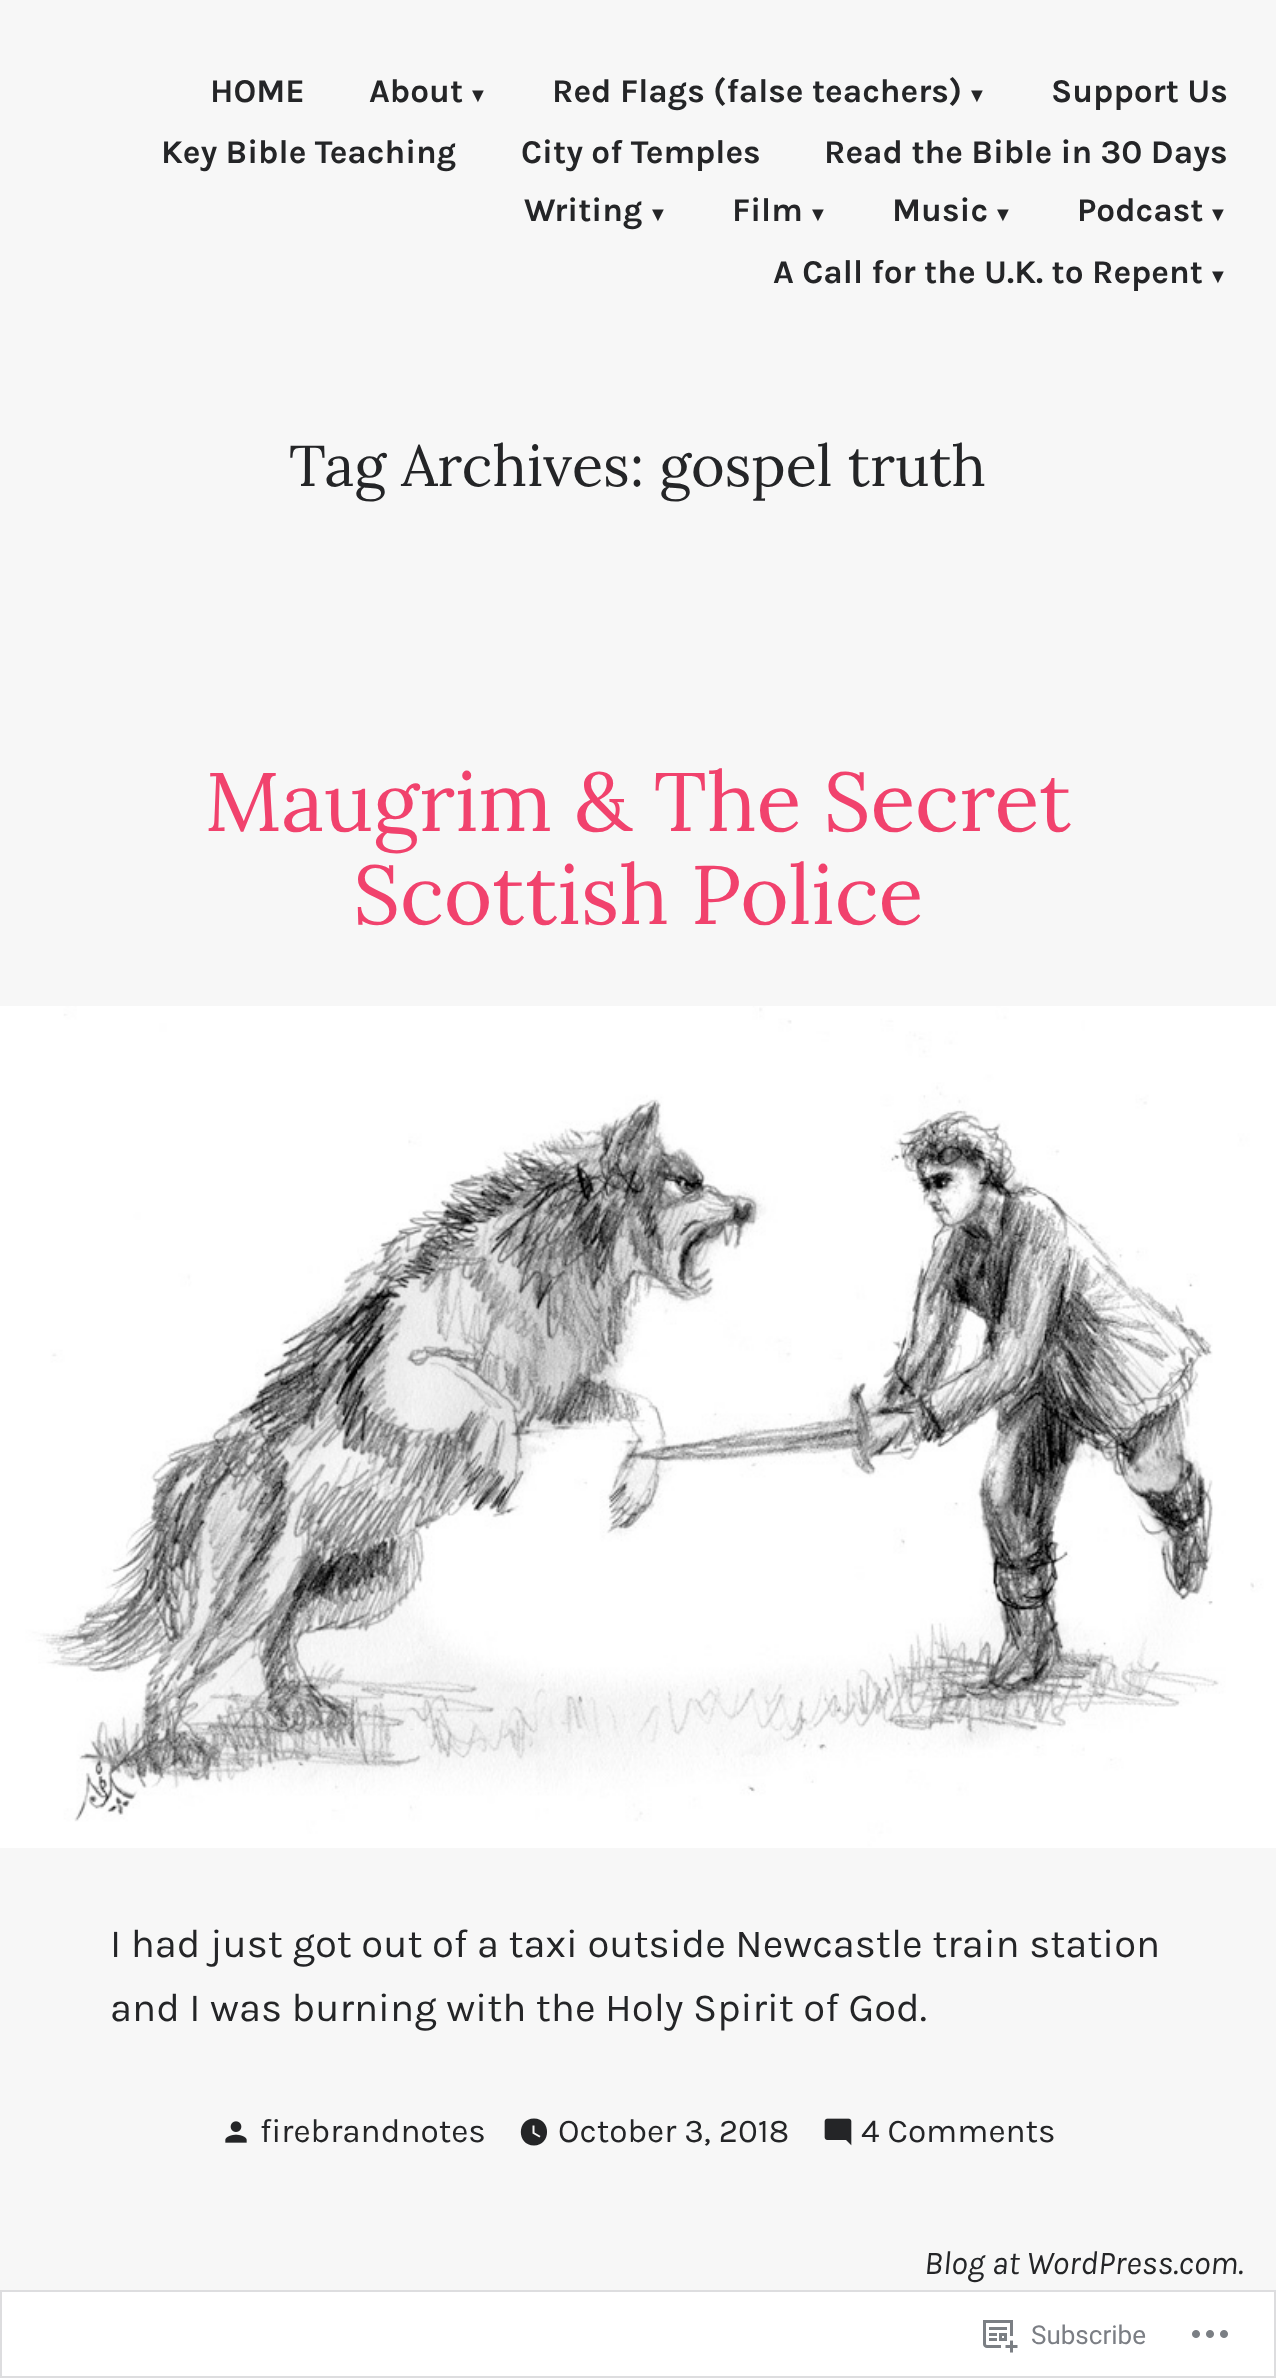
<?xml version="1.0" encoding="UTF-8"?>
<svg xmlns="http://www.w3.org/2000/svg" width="1276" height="2378">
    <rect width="100%" height="100%" fill="#F7F7F7"/>
    <text x="210" y="102" font-family="Karla" font-size="33.3" font-weight="700" fill="#242527">HOME</text>
    <text x="369" y="102" font-family="Karla" font-size="33.3" font-weight="700" fill="#242527">About</text>
    <text x="468" y="102" font-family="Liberation Sans" font-size="20" font-weight="700" fill="#242527">▼</text>
    <text x="552" y="102" font-family="Karla" font-size="33.3" font-weight="700" fill="#242527">Red Flags (false teachers)</text>
    <text x="967" y="102" font-family="Liberation Sans" font-size="20" font-weight="700" fill="#242527">▼</text>
    <text x="1051" y="102" font-family="Karla" font-size="33.3" font-weight="700" fill="#242527">Support Us</text>
    <text x="161" y="163" font-family="Karla" font-size="33.3" font-weight="700" fill="#242527">Key Bible Teaching</text>
    <text x="521" y="163" font-family="Karla" font-size="33.3" font-weight="700" fill="#242527">City of Temples</text>
    <text x="824" y="163" font-family="Karla" font-size="33.3" font-weight="700" fill="#242527">Read the Bible in 30 Days</text>
    <text x="524" y="221" font-family="Karla" font-size="33.3" font-weight="700" fill="#242527">Writing</text>
    <text x="648" y="221" font-family="Liberation Sans" font-size="20" font-weight="700" fill="#242527">▼</text>
    <text x="732" y="221" font-family="Karla" font-size="33.3" font-weight="700" fill="#242527">Film</text>
    <text x="808" y="221" font-family="Liberation Sans" font-size="20" font-weight="700" fill="#242527">▼</text>
    <text x="892" y="221" font-family="Karla" font-size="33.3" font-weight="700" fill="#242527">Music</text>
    <text x="993" y="221" font-family="Liberation Sans" font-size="20" font-weight="700" fill="#242527">▼</text>
    <text x="1077" y="221" font-family="Karla" font-size="33.3" font-weight="700" fill="#242527">Podcast</text>
    <text x="1208" y="221" font-family="Liberation Sans" font-size="20" font-weight="700" fill="#242527">▼</text>
    <text x="773" y="283" font-family="Karla" font-size="33.3" font-weight="700" fill="#242527">A Call for the U.K. to Repent</text>
    <text x="1208" y="283" font-family="Liberation Sans" font-size="20" font-weight="700" fill="#242527">▼</text>
    <text x="289" y="486" font-family="Lora" font-size="57.6" fill="#242527">Tag Archives: gospel truth</text>
    <text x="205" y="831" font-family="Lora" font-size="83" fill="#F1426D">Maugrim &amp; The Secret</text>
    <text x="353" y="924" font-family="Lora" font-size="83" fill="#F1426D">Scottish Police</text>
    <image x="0" y="1006" width="1276" height="842" href="img_01.png"/>
    <text font-family="Karla" font-size="40" fill="#242527">
        <tspan x="110" y="1957">I had just got out of a taxi outside Newcastle train station</tspan>
        <tspan x="110" y="2021">and I was burning with the Holy Spirit of God.</tspan>
    </text>
    <image x="225" y="2121" width="22" height="22" href="img_02.png"/>
    <text x="260" y="2142" font-family="Karla" font-size="33.3" fill="#242527">firebrandnotes</text>
    <path d="M 534 2118.5 C 516.5 2118.5 516.5 2145.5 534 2145.5 C 551.5 2145.5 551.5 2118.5 534 2118.5 Z M 539.5 2137.5 L 532.5 2133.5 V 2125.5 H 534.5 V 2132.5 L 540.5 2136 Z" fill="#242527"/>
    <text x="558" y="2142" font-family="Karla" font-size="33.3" fill="#242527">October 3, 2018</text>
    <image x="824" y="2118" width="28" height="28" href="img_03.png"/>
    <text x="861" y="2142" font-family="Karla" font-size="33.3" fill="#242527">4 Comments</text>
    <text x="924" y="2274" font-family="Karla" font-size="33.3" font-style="italic" fill="#242527">Blog at WordPress.com.</text>
    <rect x="1" y="2291" width="1274" height="86" fill="#FFFFFF" stroke="#DDDDDF" stroke-width="2"/>
    <image x="983" y="2320" width="35" height="33" href="img_04.png"/>
    <text x="1031" y="2344" font-family="Roboto" font-size="26" fill="#7B7E84">Subscribe</text>
    <image x="1192" y="2330" width="36" height="8" href="img_05.png"/>
</svg>
